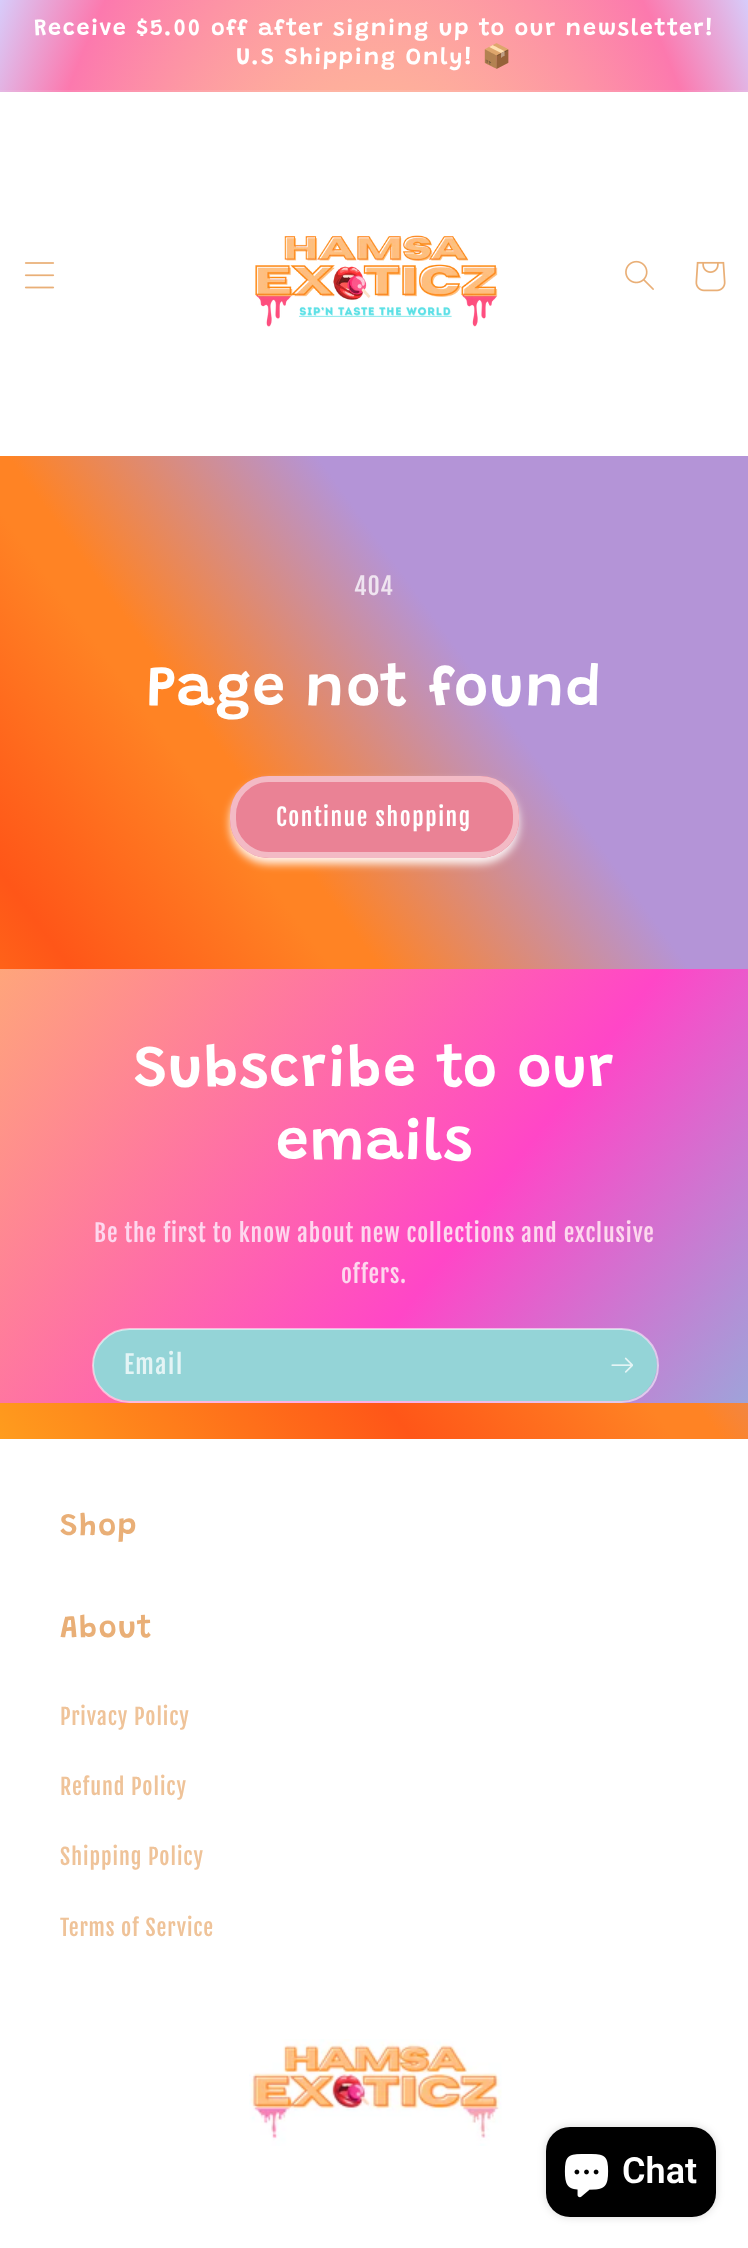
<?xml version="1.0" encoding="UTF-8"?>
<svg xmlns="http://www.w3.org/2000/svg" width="748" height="2248">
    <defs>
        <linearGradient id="g1" gradientUnits="userSpaceOnUse" x1="-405" y1="1691" x2="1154" y2="558"><stop offset="0.06" stop-color="#FFE823"/><stop offset="0.42" stop-color="#FF5618"/><stop offset="0.53" stop-color="#FF8324"/><stop offset="0.55" stop-color="#FF8324"/><stop offset="0.68" stop-color="#B494D7"/></linearGradient>
        <radialGradient id="g2" gradientUnits="userSpaceOnUse" cx="0" cy="0" r="1" gradientTransform="matrix(529 0 0 1590 374 1124)"><stop offset="0.33" stop-color="#FC809D"/><stop offset="0.36" stop-color="#FC868E"/><stop offset="0.45" stop-color="#00C3CC"/><stop offset="0.55" stop-color="#FFC893"/><stop offset="0.87" stop-color="#FC79AE"/><stop offset="1" stop-color="#D7CCFA"/></radialGradient>
        <radialGradient id="g3" gradientUnits="userSpaceOnUse" cx="0" cy="0" r="1" gradientTransform="matrix(529 0 0 1590 374 1124)"><stop offset="0.33" stop-color="#FC8AA5"/><stop offset="0.36" stop-color="#FC9097"/><stop offset="0.45" stop-color="#14C8D0"/><stop offset="0.55" stop-color="#FFCC9C"/><stop offset="0.87" stop-color="#FC84B4"/><stop offset="1" stop-color="#DAD0FA"/></radialGradient>
        <filter id="blur1" x="-50%" y="-200%" width="200%" height="500%"><feGaussianBlur stdDeviation="4"/></filter>
        <linearGradient id="g4" gradientUnits="userSpaceOnUse" x1="-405" y1="537" x2="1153" y2="1711"><stop offset="0.15" stop-color="#FED951"/><stop offset="0.57" stop-color="#FF46C7"/><stop offset="0.85" stop-color="#60E0E6"/></linearGradient>
    </defs>
    <rect width="100%" height="100%" fill="#FFFFFF"/>
    <rect x="0" y="456" width="748" height="983" fill="url(#g1)"/>
    <rect x="0" y="0" width="748" height="90" fill="url(#g2)"/>
    <rect x="0" y="90" width="748" height="2" fill="url(#g3)"/>
    <text x="34" y="35" font-family="Grandstander" font-size="23.4" font-weight="600" letter-spacing="1.58" fill="#FFFFFF">Receive $5.00 off after signing up to our newsletter!</text>
    <text x="236" y="64" font-family="Grandstander" font-size="23.4" font-weight="600" letter-spacing="1.58" fill="#FFFFFF">U.S Shipping Only!</text>
    <text x="482" y="64" font-family="Noto Color Emoji" font-size="23.4" font-weight="700" letter-spacing="1.58" fill="#FFFFFF">📦</text>
    <image x="24" y="262" width="31" height="27" href="img_01.png"/>
    <image x="255" y="235" width="243" height="92" href="img_02.png"/>
    <image x="625" y="260" width="29" height="30" href="img_03.png"/>
    <image x="695" y="261" width="31" height="31" href="img_04.png"/>
    <text x="354" y="595" font-family="Fjalla One" font-size="23.6" letter-spacing="0.95" fill="#EFE4F0">404</text>
    <text x="147" y="705" font-family="Grandstander" font-size="58.5" font-weight="600" letter-spacing="1.2" fill="#FFFFFF">Page not found</text>
    <rect x="230" y="782" width="289" height="82" rx="39" fill="#FFFFFF" fill-opacity="0.9" filter="url(#blur1)"/>
    <rect x="230" y="776" width="289" height="82" rx="39" fill="#EA8295"/>
    <rect x="233" y="779" width="283" height="76" rx="36" fill="none" stroke="#EA8295" stroke-width="6"/>
    <rect x="233" y="779" width="283" height="76" rx="36" fill="none" stroke="#FFFFFF" stroke-opacity="0.45" stroke-width="6"/>
    <text x="276" y="826" font-family="Fjalla One" font-size="23.6" letter-spacing="1.58" fill="#FFFFFF">Continue shopping</text>
    <rect x="0" y="969" width="748" height="434" fill="url(#g4)"/>
    <text x="134" y="1086" font-family="Grandstander" font-size="58.5" font-weight="600" letter-spacing="1.2" fill="#FFFFFF">Subscribe to our</text>
    <text x="276" y="1159" font-family="Grandstander" font-size="58.5" font-weight="600" letter-spacing="1.2" fill="#FFFFFF">emails</text>
    <text x="94" y="1242" font-family="Fjalla One" font-size="23.6" letter-spacing="0.95" fill="#FDD7EE">Be the first to know about new collections and exclusive</text>
    <text x="341" y="1283" font-family="Fjalla One" font-size="23.6" letter-spacing="0.95" fill="#FDD7EE">offers.</text>
    <rect x="93" y="1329" width="564" height="72" rx="36" fill="#94D4D7"/>
    <rect x="93" y="1329" width="565" height="73" rx="36.5" fill="none" stroke="#FFFFFF" stroke-opacity="0.55" stroke-width="2"/>
    <text x="124" y="1374" font-family="Fjalla One" font-size="25" letter-spacing="1.58" fill="#E4F4F5">Email</text>
    <image x="611" y="1357" width="22" height="16" href="img_05.png"/>
    <text x="60" y="1535" font-family="Grandstander" font-size="31" font-weight="600" letter-spacing="1.2" fill="#E9AF77">Shop</text>
    <text x="60" y="1637" font-family="Grandstander" font-size="31" font-weight="600" letter-spacing="1.2" fill="#E9AF77">About</text>
    <text x="60" y="1725" font-family="Fjalla One" font-size="22" letter-spacing="0.95" fill="#EFC399">Privacy Policy</text>
    <text x="60" y="1795" font-family="Fjalla One" font-size="22" letter-spacing="0.95" fill="#EFC399">Refund Policy</text>
    <text x="60" y="1865" font-family="Fjalla One" font-size="22" letter-spacing="0.95" fill="#EFC399">Shipping Policy</text>
    <text x="60" y="1936" font-family="Fjalla One" font-size="22" letter-spacing="0.95" fill="#EFC399">Terms of Service</text>
    <image x="249" y="2039" width="253" height="107" href="img_06.png"/>
    <rect x="546" y="2127" width="170" height="90" rx="24" fill="#000000" fill-opacity="0.15" filter="url(#blur1)"/>
    <rect x="546" y="2127" width="170" height="90" rx="24" fill="#000000"/>
    <image x="564" y="2154" width="45" height="44" href="img_07.png"/>
    <text x="622" y="2183" font-family="Roboto" font-size="36" font-weight="600" fill="#FFFFFF">Chat</text>
</svg>
